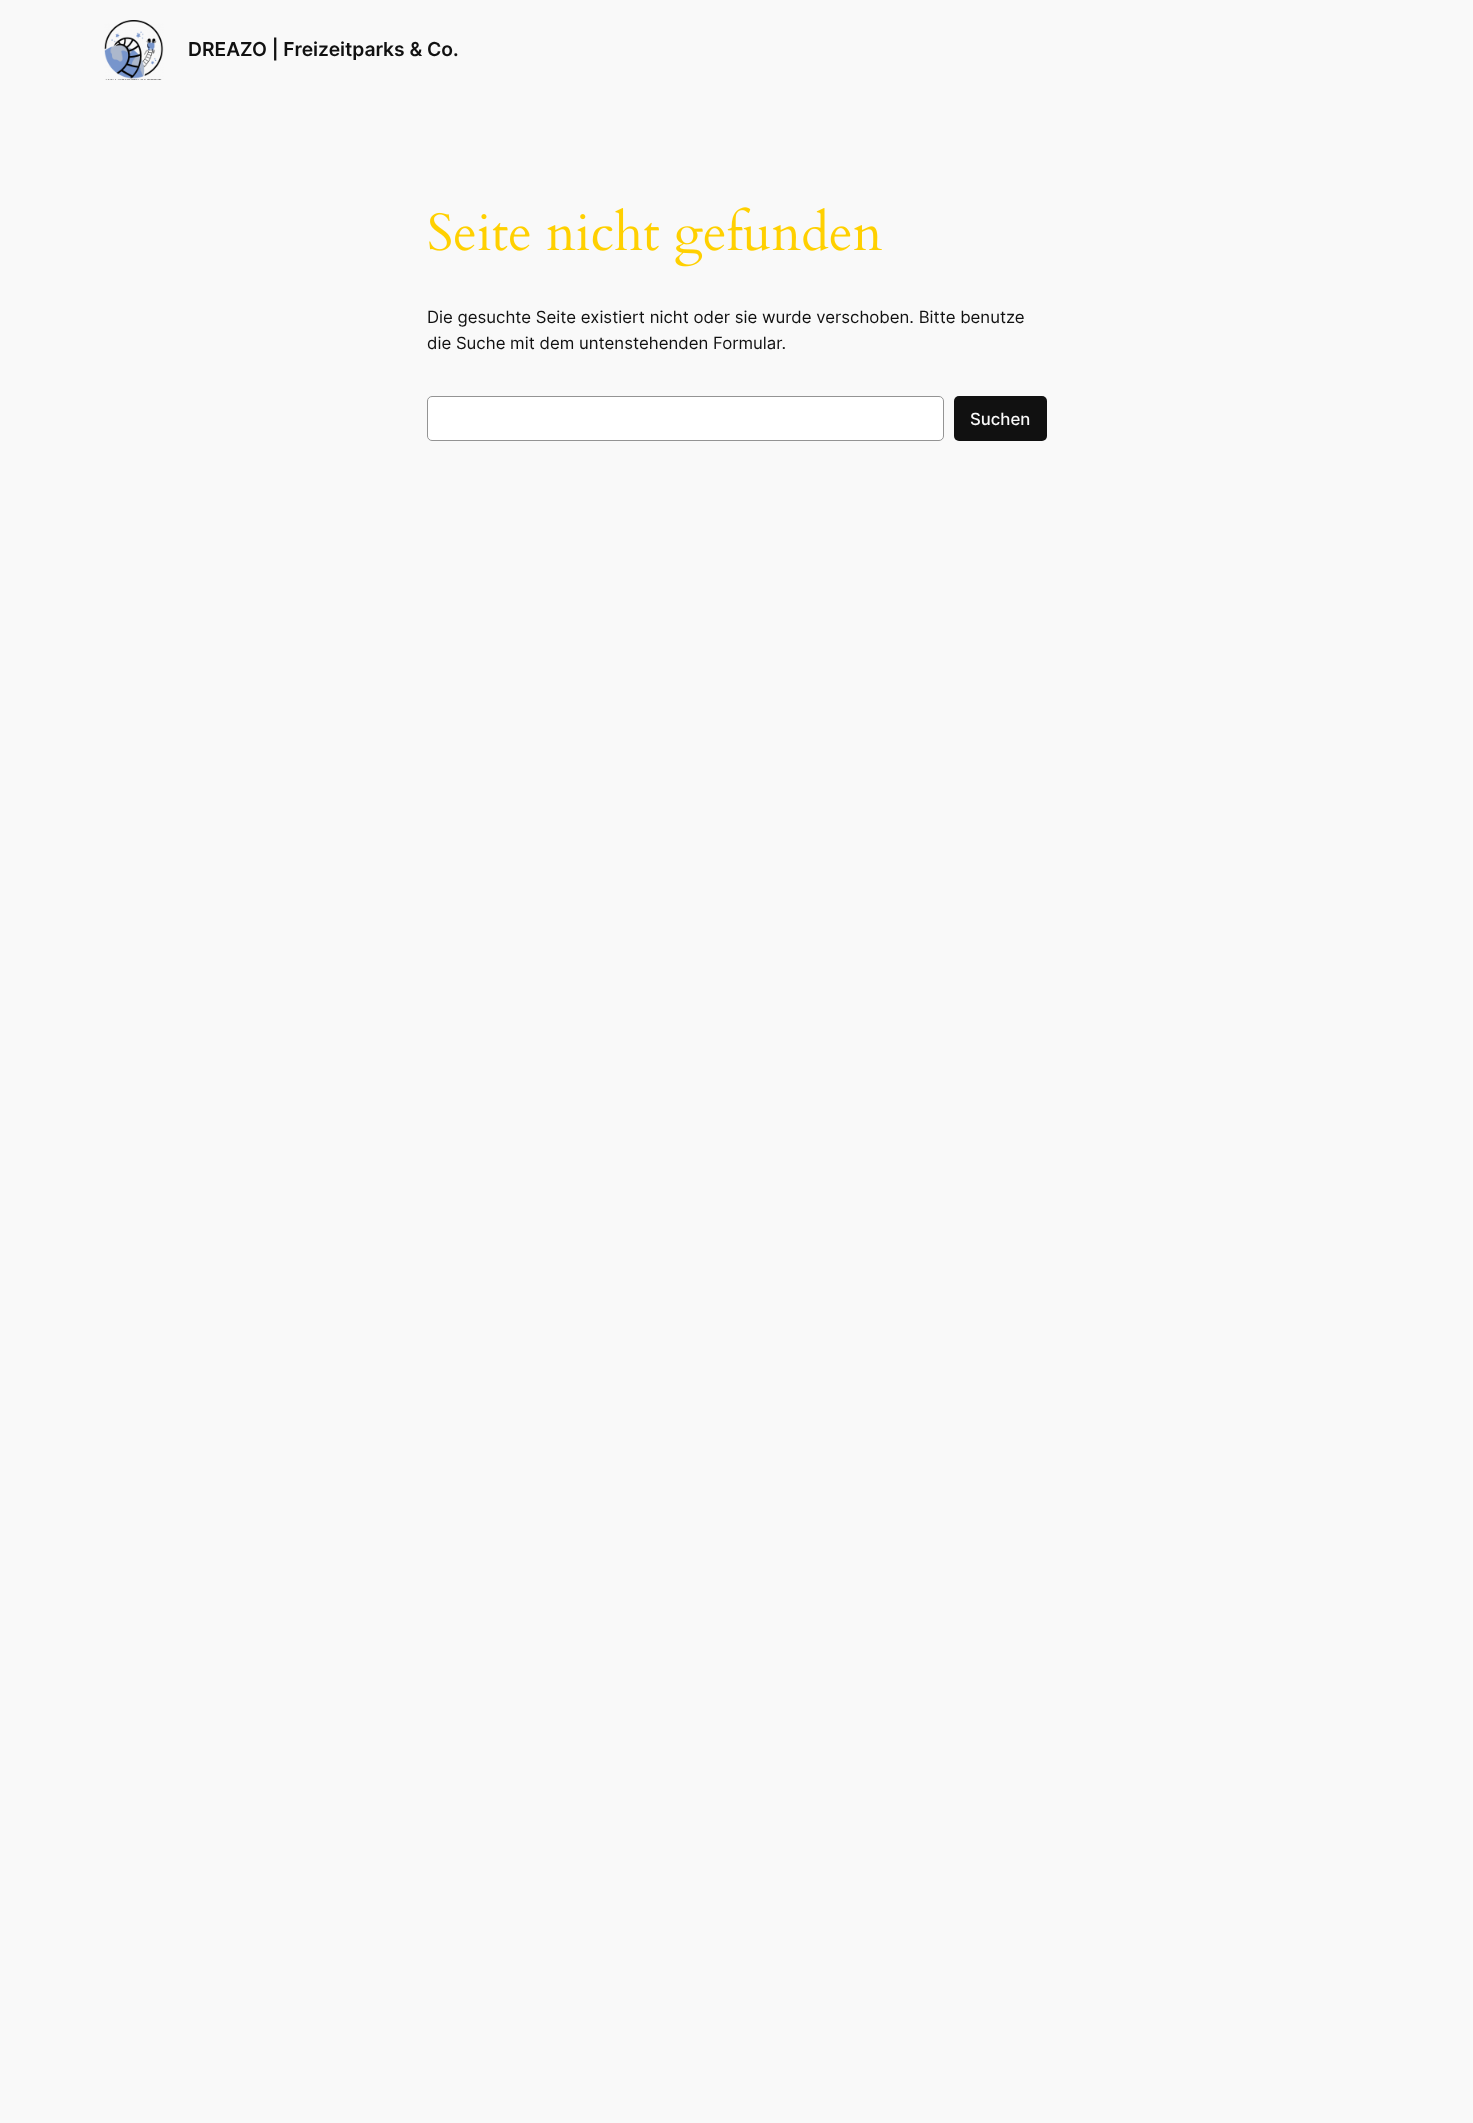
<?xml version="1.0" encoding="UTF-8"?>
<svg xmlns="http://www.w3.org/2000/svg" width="1473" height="2123">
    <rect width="100%" height="100%" fill="#F9F9F9"/>
    <image x="104" y="20" width="60" height="60" href="img_01.png"/>
    <text x="188" y="56" font-family="Inter" font-size="19.25" font-weight="600" fill="#111111">DREAZO | Freizeitparks &amp; Co.</text>
    <image x="429" y="207" width="453" height="60" href="img_02.png"/>
    <text font-family="Inter" font-size="16.8" fill="#111111">
        <tspan x="427" y="323">Die gesuchte Seite existiert nicht oder sie wurde verschoben. Bitte benutze</tspan>
        <tspan x="427" y="349">die Suche mit dem untenstehenden Formular.</tspan>
    </text>
    <rect x="427.5" y="396.5" width="516" height="44" rx="4.5" fill="#FFFFFF" stroke="#949494"/>
    <rect x="954" y="396" width="93" height="45" rx="5" fill="#111111"/>
    <text x="970" y="425" font-family="Inter" font-size="16.8" font-weight="500" fill="#F9F9F9">Suchen</text>
</svg>
